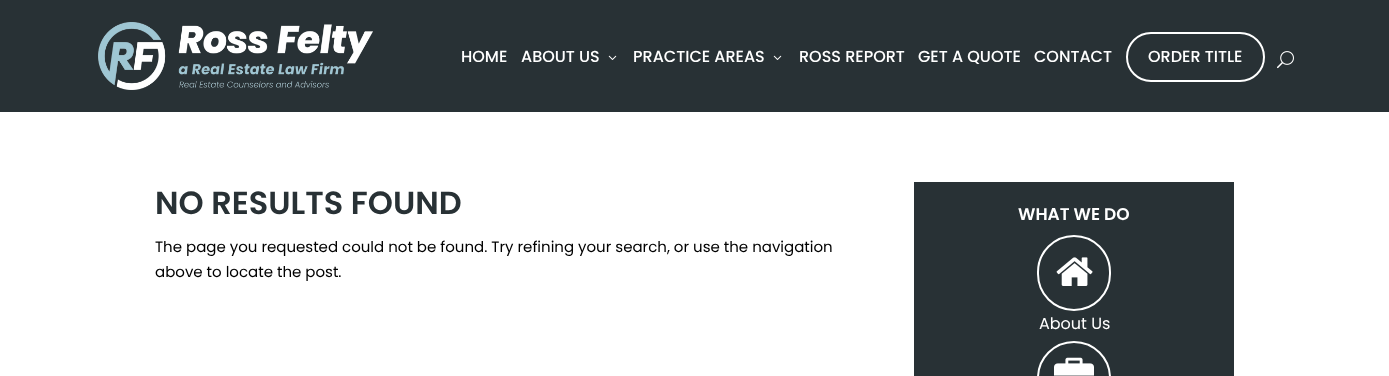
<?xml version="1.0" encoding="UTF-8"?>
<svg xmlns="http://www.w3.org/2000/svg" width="1389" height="376">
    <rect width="100%" height="100%" fill="#FFFFFF"/>
    <rect x="0" y="0" width="1389" height="112" fill="#283135"/>
    <image x="98" y="22" width="275" height="68" href="img_01.png"/>
    <text x="461" y="62" font-family="Poppins" font-size="16" font-weight="500" fill="#FFFFFF">HOME</text>
    <text x="521" y="62" font-family="Poppins" font-size="16" font-weight="500" fill="#FFFFFF">ABOUT US</text>
    <image x="608" y="55" width="9" height="5" href="img_02.png"/>
    <text x="633" y="62" font-family="Poppins" font-size="16" font-weight="500" fill="#FFFFFF">PRACTICE AREAS</text>
    <image x="773" y="55" width="9" height="5" href="img_02.png"/>
    <text x="799" y="62" font-family="Poppins" font-size="16" font-weight="500" fill="#FFFFFF">ROSS REPORT</text>
    <text x="918" y="62" font-family="Poppins" font-size="16" font-weight="500" fill="#FFFFFF">GET A QUOTE</text>
    <text x="1034" y="62" font-family="Poppins" font-size="16" font-weight="500" fill="#FFFFFF">CONTACT</text>
    <rect x="1127" y="33" width="137" height="48" rx="24" fill="none" stroke="#FFFFFF" stroke-width="2"/>
    <text x="1148" y="62" font-family="Poppins" font-size="16" font-weight="500" fill="#FFFFFF">ORDER TITLE</text>
    <image x="1277" y="51" width="17" height="18" href="img_03.png"/>
    <text x="155" y="214" font-family="Poppins" font-size="32" font-weight="600" fill="#283135">NO RESULTS FOUND</text>
    <text font-family="Poppins" font-size="15" fill="#000000">
        <tspan x="155" y="252">The page you requested could not be found. Try refining your search, or use the navigation</tspan>
        <tspan x="155" y="277">above to locate the post.</tspan>
    </text>
    <rect x="914.5" y="182.5" width="319" height="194" fill="none" stroke="#283135"/>
    <rect x="915" y="183" width="318" height="193" fill="#283135"/>
    <text x="1018" y="220" font-family="Poppins" font-size="17" font-weight="600" fill="#FFFFFF">WHAT WE DO</text>
    <rect x="1038" y="236" width="72" height="74" rx="36" fill="none" stroke="#FFFFFF" stroke-width="2"/>
    <image x="1056" y="257" width="37" height="29" href="img_04.png"/>
    <text x="1039" y="329" font-family="Poppins" font-size="16" fill="#FFFFFF">About Us</text>
    <circle cx="1074" cy="378" r="36" fill="none" stroke="#FFFFFF" stroke-width="2"/>
    <image x="1054" y="357" width="40" height="19" href="img_05.png"/>
</svg>
